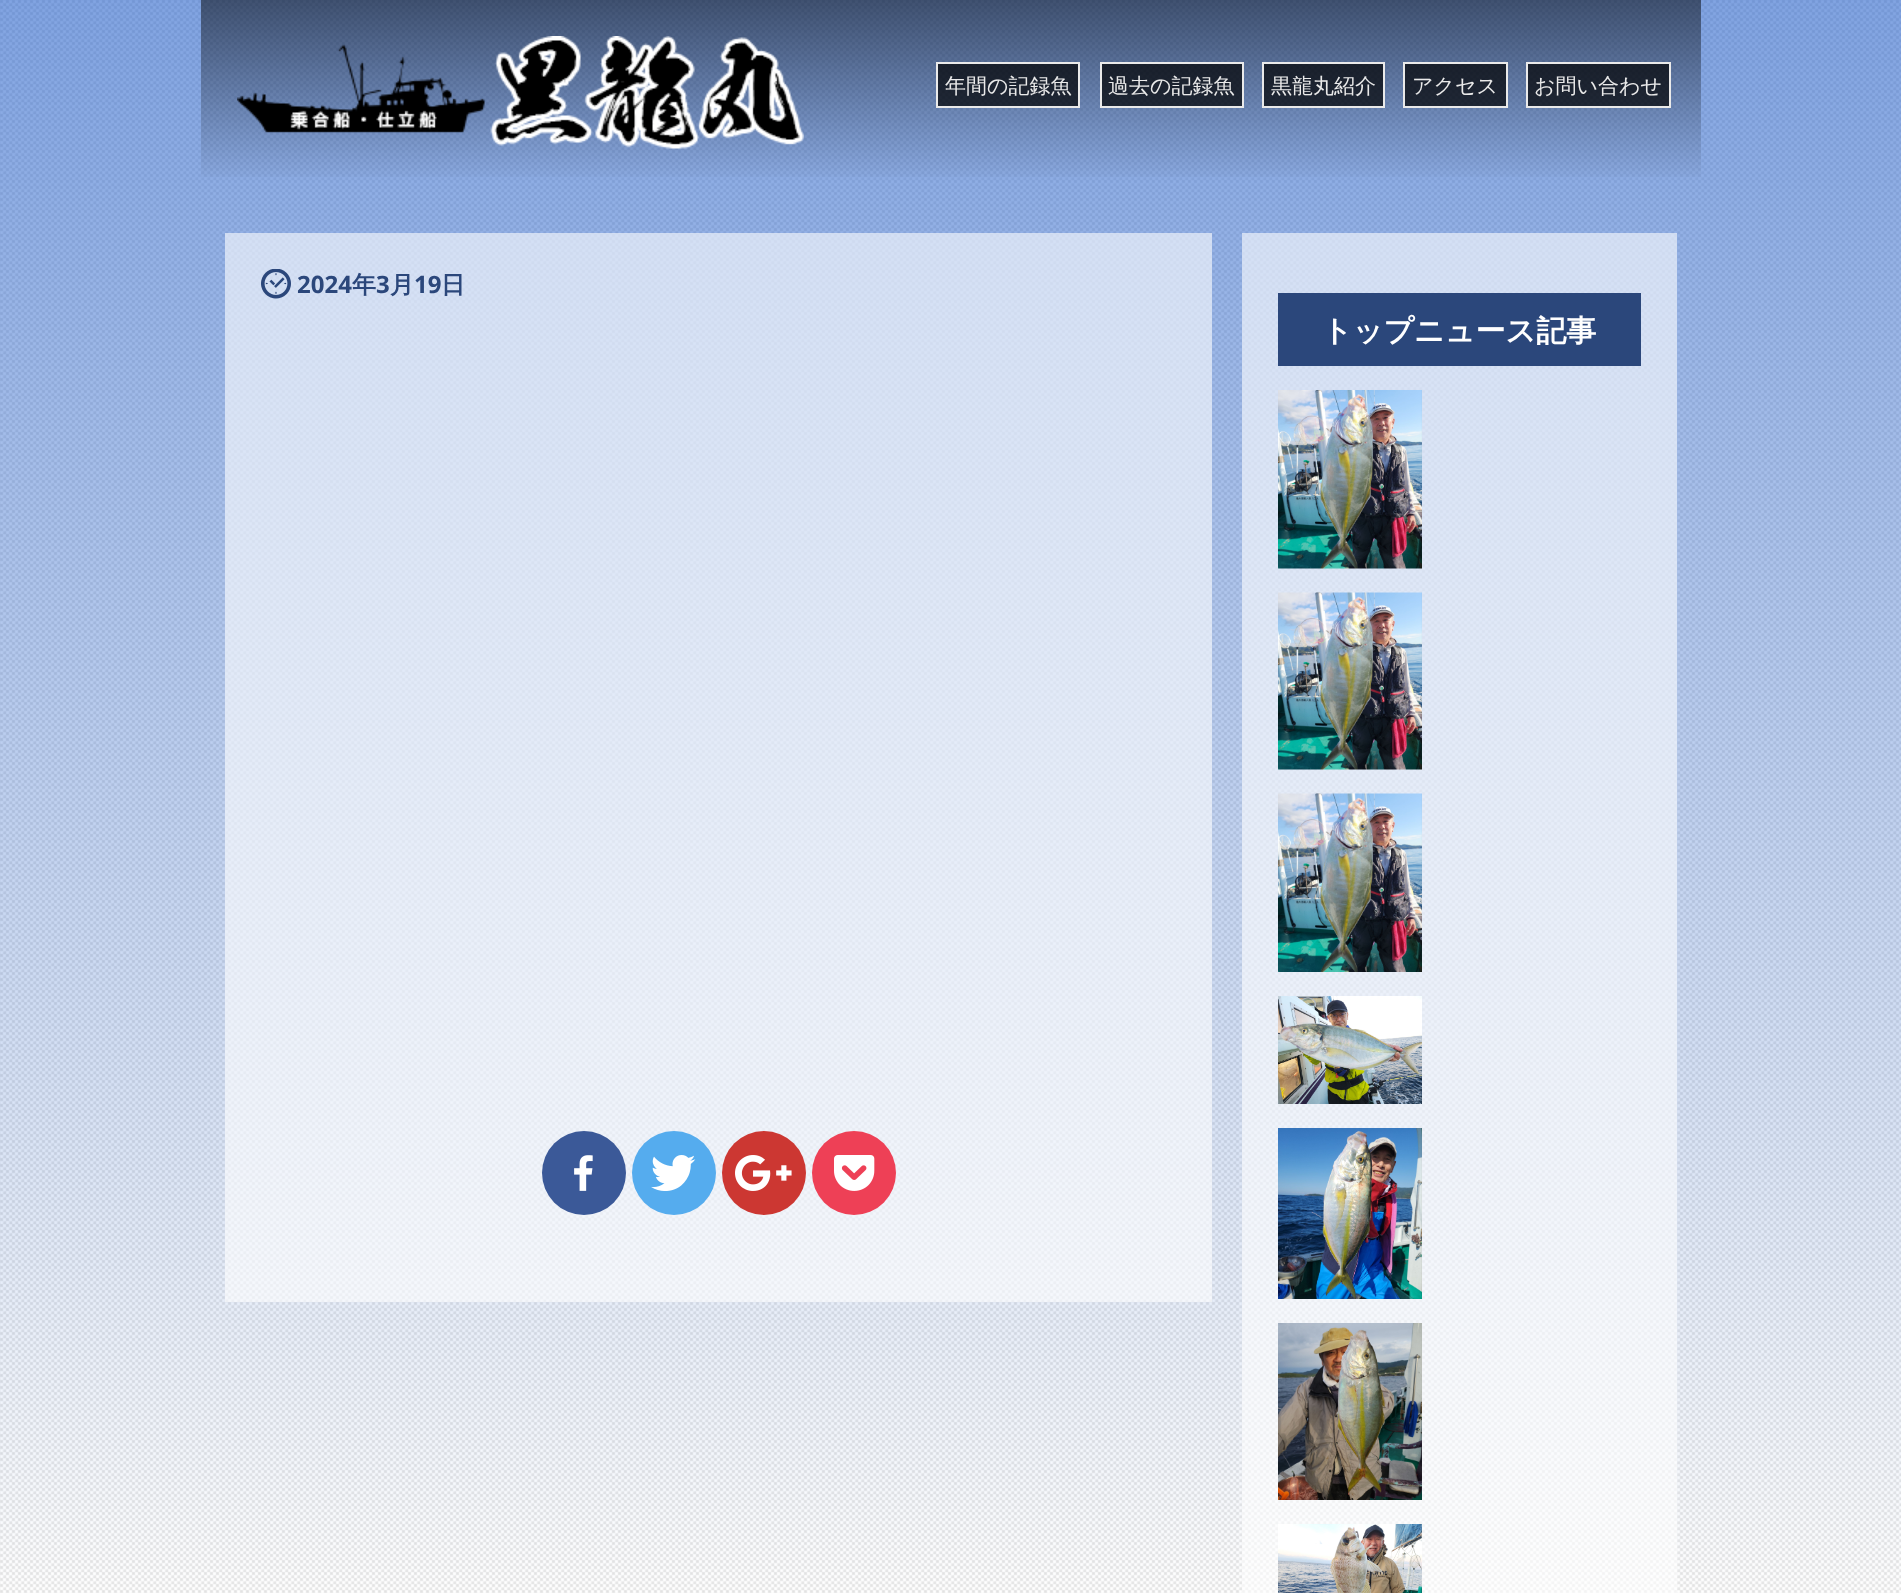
<?xml version="1.0" encoding="UTF-8"?>
<svg xmlns="http://www.w3.org/2000/svg" width="1901" height="1593">
    <defs>
        <linearGradient id="g1" gradientUnits="userSpaceOnUse" x1="951" y1="0" x2="951" y2="185"><stop offset="0" stop-color="#000000" stop-opacity="0.5"/><stop offset="1" stop-color="#000000" stop-opacity="0"/></linearGradient>
    </defs>
    <rect width="100%" height="100%" fill="#FFFFFF"/>
    <image x="0" y="0" width="1901" height="1593" href="img_01.png"/>
    <rect x="201" y="0" width="1500" height="177" fill="url(#g1)"/>
    <image x="237" y="36" width="567" height="113" href="img_02.png"/>
    <rect x="937" y="63" width="142" height="44" fill="#000000" fill-opacity="0.7" stroke="#EAEAEA" stroke-width="2"/>
    <text x="945" y="93" font-family="WenQuanYi Zen Hei" font-size="21" font-weight="500" fill="#EAEAEA">年間の記録魚</text>
    <rect x="1101" y="63" width="142" height="44" fill="#000000" fill-opacity="0.7" stroke="#EAEAEA" stroke-width="2"/>
    <text x="1108" y="93" font-family="WenQuanYi Zen Hei" font-size="21" font-weight="500" fill="#EAEAEA">過去の記録魚</text>
    <rect x="1263" y="63" width="121" height="44" fill="#000000" fill-opacity="0.7" stroke="#EAEAEA" stroke-width="2"/>
    <text x="1271" y="93" font-family="WenQuanYi Zen Hei" font-size="21" font-weight="500" fill="#EAEAEA">黒龍丸紹介</text>
    <rect x="1404" y="63" width="103" height="44" fill="#000000" fill-opacity="0.7" stroke="#EAEAEA" stroke-width="2"/>
    <text x="1412" y="93" font-family="WenQuanYi Zen Hei" font-size="21" font-weight="500" fill="#EAEAEA">アクセス</text>
    <rect x="1527" y="63" width="143" height="44" fill="#000000" fill-opacity="0.7" stroke="#EAEAEA" stroke-width="2"/>
    <text x="1534" y="93" font-family="WenQuanYi Zen Hei" font-size="21" font-weight="500" fill="#EAEAEA">お問い合わせ</text>
    <rect x="225" y="233" width="987" height="1069" fill="#FFFFFF" fill-opacity="0.6"/>
    <image x="261" y="269" width="30" height="30" href="img_03.png"/>
    <text x="297" y="293" font-family="Open Sans" font-size="24" font-weight="700" fill="#2B477B">2024</text>
    <text x="352" y="293" font-family="WenQuanYi Zen Hei" font-size="24" font-weight="700" fill="#2B477B">年</text>
    <text x="376" y="293" font-family="Open Sans" font-size="24" font-weight="700" fill="#2B477B">3</text>
    <text x="390" y="293" font-family="WenQuanYi Zen Hei" font-size="24" font-weight="700" fill="#2B477B">月</text>
    <text x="414" y="293" font-family="Open Sans" font-size="24" font-weight="700" fill="#2B477B">19</text>
    <text x="441" y="293" font-family="WenQuanYi Zen Hei" font-size="24" font-weight="700" fill="#2B477B">日</text>
    <circle cx="584" cy="1173" r="42" fill="#3B5998"/>
    <image x="574" y="1155" width="19" height="36" href="img_04.png"/>
    <circle cx="674" cy="1173" r="42" fill="#55ACEE"/>
    <image x="651" y="1155" width="45" height="36" href="img_05.png"/>
    <circle cx="764" cy="1173" r="42" fill="#CC3732"/>
    <image x="735" y="1155" width="57" height="36" href="img_06.png"/>
    <circle cx="854" cy="1173" r="42" fill="#EE4056"/>
    <image x="834" y="1155" width="41" height="36" href="img_07.png"/>
    <rect x="1242" y="233" width="435" height="1360" fill="#FFFFFF" fill-opacity="0.6"/>
    <rect x="1278" y="293" width="363" height="73" fill="#2B477B"/>
    <text x="1322" y="341" font-family="WenQuanYi Zen Hei" font-size="30" font-weight="700" fill="#FFFFFF">トップニュース記事</text>
    <image x="1278" y="390" width="144" height="179" href="img_08.png"/>
    <image x="1278" y="592" width="144" height="178" href="img_09.png"/>
    <image x="1278" y="793" width="144" height="179" href="img_10.png"/>
    <image x="1278" y="996" width="144" height="108" href="img_11.png"/>
    <image x="1278" y="1128" width="144" height="171" href="img_12.png"/>
    <image x="1278" y="1323" width="144" height="177" href="img_13.png"/>
    <image x="1278" y="1524" width="144" height="69" href="img_14.png"/>
</svg>
